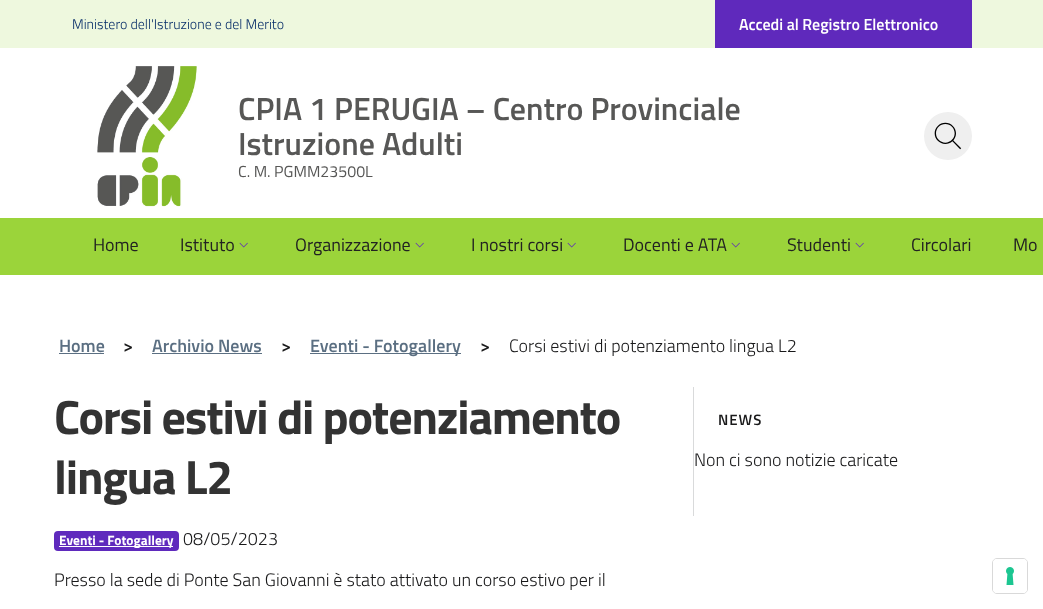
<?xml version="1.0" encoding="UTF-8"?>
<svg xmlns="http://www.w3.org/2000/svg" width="1043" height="609">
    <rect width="100%" height="100%" fill="#FFFFFF"/>
    <rect x="0" y="0" width="1043" height="48" fill="#EEF8DE"/>
    <text x="72" y="29" font-family="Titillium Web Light" font-size="14" font-weight="300" fill="#092F69">Ministero dell'Istruzione e del Merito</text>
    <rect x="715" y="0" width="257" height="48" fill="#5F29BC"/>
    <text x="739" y="30" font-family="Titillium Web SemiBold" font-size="16" font-weight="600" fill="#FFFFFF">Accedi al Registro Elettronico</text>
    <image x="97" y="66" width="100" height="141" href="img_01.png"/>
    <text font-family="Titillium Web SemiBold" font-size="32" font-weight="600" fill="#575756">
        <tspan x="238" y="120">CPIA 1 PERUGIA – Centro Provinciale</tspan>
        <tspan x="238" y="155">Istruzione Adulti</tspan>
    </text>
    <text x="238" y="177" font-family="Titillium Web" font-size="16" fill="#575756">C. M. PGMM23500L</text>
    <circle cx="948" cy="136" r="24" fill="#EFEFEF"/>
    <image x="934" y="122" width="28" height="28" href="img_02.png"/>
    <rect x="0" y="218" width="1043" height="57" fill="#9BD43A"/>
    <text x="93" y="251" font-family="Titillium Web" font-size="18" fill="#222222">Home</text>
    <text x="180" y="251" font-family="Titillium Web" font-size="18" fill="#222222">Istituto</text>
    <image x="239" y="242" width="9" height="6" href="img_03.png"/>
    <text x="295" y="251" font-family="Titillium Web" font-size="18" fill="#222222">Organizzazione</text>
    <image x="415" y="242" width="9" height="6" href="img_03.png"/>
    <text x="471" y="251" font-family="Titillium Web" font-size="18" fill="#222222">I nostri corsi</text>
    <image x="567" y="242" width="9" height="6" href="img_03.png"/>
    <text x="623" y="251" font-family="Titillium Web" font-size="18" fill="#222222">Docenti e ATA</text>
    <image x="731" y="242" width="9" height="6" href="img_03.png"/>
    <text x="787" y="251" font-family="Titillium Web" font-size="18" fill="#222222">Studenti</text>
    <image x="855" y="242" width="9" height="6" href="img_03.png"/>
    <text x="911" y="251" font-family="Titillium Web" font-size="18" fill="#222222">Circolari</text>
    <text x="1013" y="251" font-family="Titillium Web" font-size="18" fill="#222222">Mo</text>
    <text x="59" y="352" font-family="Titillium Web SemiBold" font-size="18" font-weight="600" fill="#5B6F82">Home</text>
    <rect x="59" y="353" width="45" height="1" fill="#5B6F82"/>
    <text x="123" y="352" font-family="Titillium Web SemiBold" font-size="18" font-weight="600" fill="#19191A">&gt;</text>
    <text x="152" y="352" font-family="Titillium Web SemiBold" font-size="18" font-weight="600" fill="#5B6F82">Archivio News</text>
    <rect x="152" y="353" width="110" height="1" fill="#5B6F82"/>
    <text x="281" y="352" font-family="Titillium Web SemiBold" font-size="18" font-weight="600" fill="#19191A">&gt;</text>
    <rect x="310" y="353" width="151" height="1" fill="#5B6F82"/>
    <text x="310" y="352" font-family="Titillium Web SemiBold" font-size="18" font-weight="600" fill="#5B6F82">Eventi - Fotogallery</text>
    <text x="480" y="352" font-family="Titillium Web SemiBold" font-size="18" font-weight="600" fill="#19191A">&gt;</text>
    <text x="509" y="352" font-family="Titillium Web Light" font-size="18" font-weight="300" fill="#19191A">Corsi estivi di potenziamento lingua L2</text>
    <text font-family="Titillium Web" font-size="48" font-weight="700" letter-spacing="-1.2" fill="#333333">
        <tspan x="54" y="434">Corsi estivi di potenziamento</tspan>
        <tspan x="54" y="494">lingua L2</tspan>
    </text>
    <rect x="54" y="531" width="125" height="20" rx="4" fill="#5F2ABD"/>
    <rect x="59" y="546" width="114" height="1" fill="#FFFFFF"/>
    <text x="59" y="545" font-family="Titillium Web" font-size="13.5" font-weight="700" fill="#FFFFFF">Eventi - Fotogallery</text>
    <text x="183" y="545" font-family="Titillium Web Light" font-size="18" font-weight="300" fill="#19191A">08/05/2023</text>
    <text x="54" y="586" font-family="Titillium Web Light" font-size="18" font-weight="300" fill="#19191A">Presso la sede di Ponte San Giovanni è stato attivato un corso estivo per il</text>
    <rect x="693" y="387" width="1" height="129" fill="#D9DADB"/>
    <text x="718" y="425" font-family="Titillium Web SemiBold" font-size="15" font-weight="600" letter-spacing="1" fill="#19191A">NEWS</text>
    <text x="694" y="466" font-family="Titillium Web Light" font-size="18" font-weight="300" fill="#19191A">Non ci sono notizie caricate</text>
    <rect x="992.5" y="558.5" width="35" height="35" rx="4.5" fill="none" stroke="#D9D9D9"/>
    <rect x="993" y="559" width="34" height="34" rx="4" fill="#FFFFFF"/>
    <image x="1006" y="567" width="8" height="18" href="img_04.png"/>
</svg>
